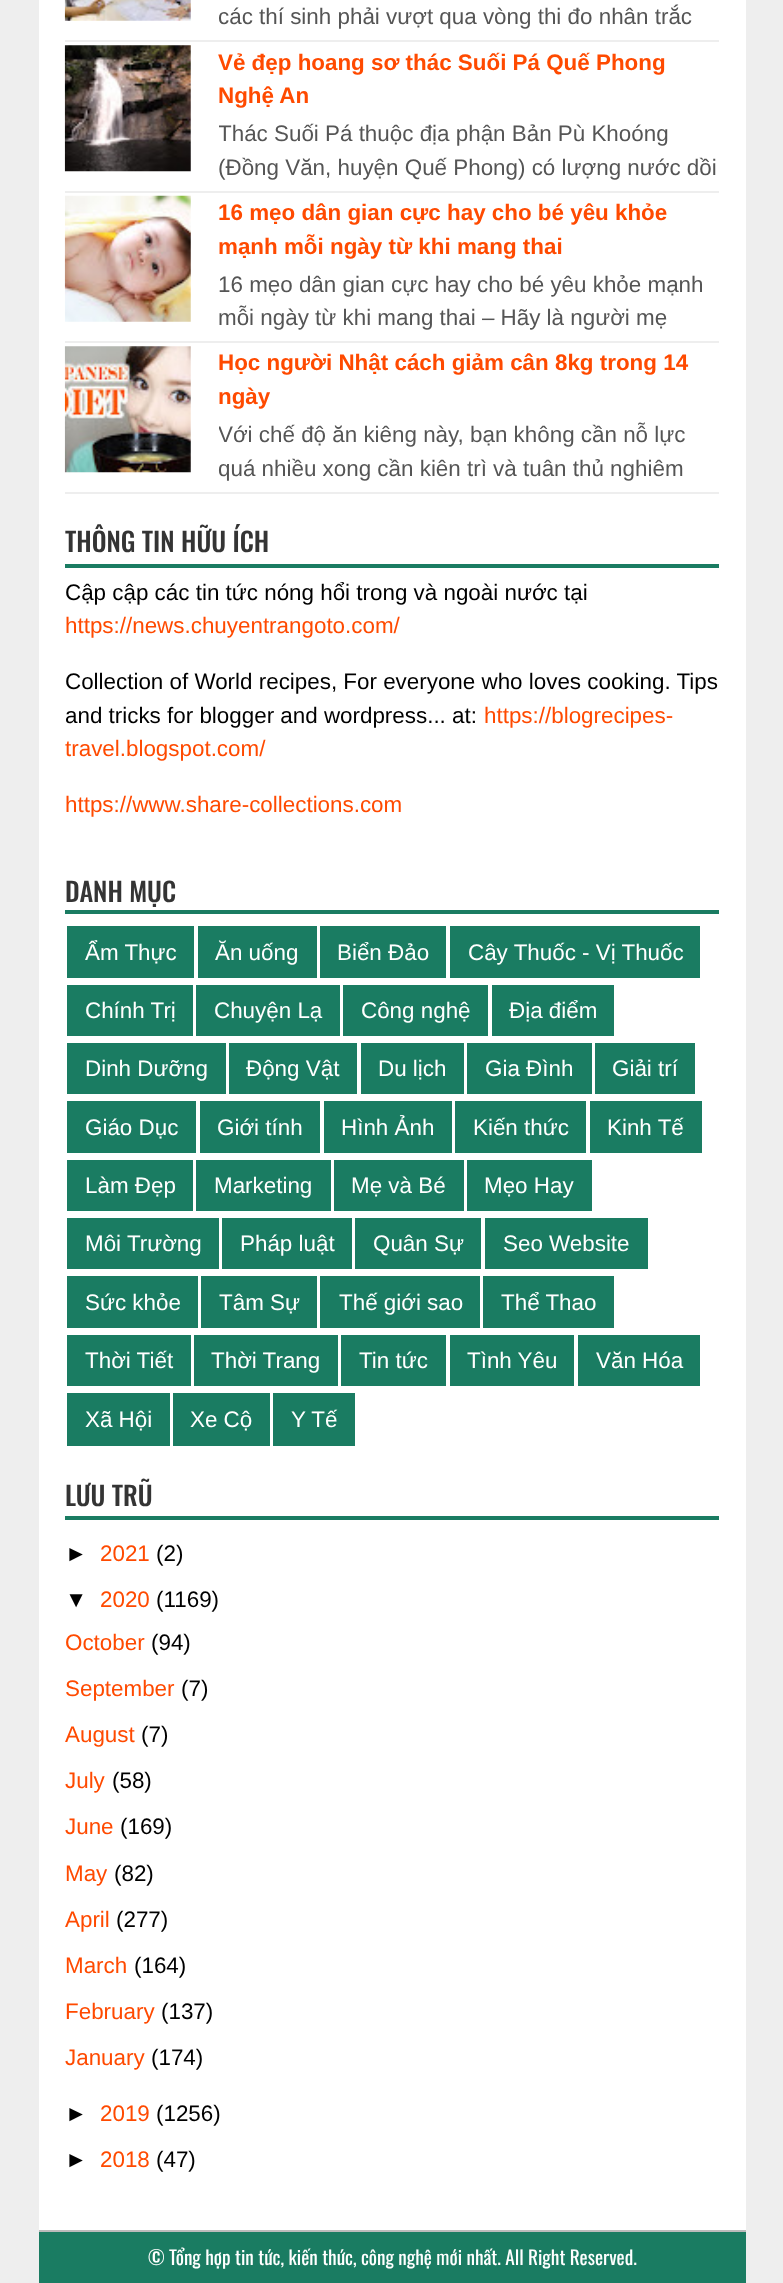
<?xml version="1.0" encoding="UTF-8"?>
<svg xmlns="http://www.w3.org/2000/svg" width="783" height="2283">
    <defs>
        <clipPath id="clip1"><rect x="219" y="117" width="500" height="70"/></clipPath>
        <clipPath id="clip2"><rect x="219" y="418" width="500" height="70"/></clipPath>
    </defs>
    <rect width="100%" height="100%" fill="#EEEEEE"/>
    <rect x="39" y="0" width="707" height="2230" fill="#FFFFFF"/>
    <rect x="65" y="40" width="654" height="2" fill="#EEEEEE"/>
    <image x="64" y="0" width="127" height="21" href="img_01.png"/>
    <text x="218" y="24" font-family="Liberation Sans" font-size="22.4" fill="#555555">các thí sinh phải vượt qua vòng thi đo nhân trắc</text>
    <rect x="65" y="191" width="654" height="2" fill="#EEEEEE"/>
    <image x="64" y="45" width="127" height="127" href="img_02.png"/>
    <text font-family="Liberation Sans" font-size="22.4" font-weight="700" fill="#FF4A00">
        <tspan x="218" y="70">Vẻ đẹp hoang sơ thác Suối Pá Quế Phong</tspan>
        <tspan x="218" y="103">Nghệ An</tspan>
    </text>
    <g clip-path="url(#clip1)">
        <text x="218" y="141" font-family="Liberation Sans" font-size="22.4" fill="#555555">Thác Suối Pá thuộc địa phận Bản Pù Khoóng</text>
    </g>
    <text x="218" y="175" font-family="Liberation Sans" font-size="22.4" fill="#555555">(Đồng Văn, huyện Quế Phong) có lượng nước dồi</text>
    <rect x="65" y="341" width="654" height="2" fill="#EEEEEE"/>
    <image x="64" y="195" width="127" height="127" href="img_03.png"/>
    <text font-family="Liberation Sans" font-size="22.4" font-weight="700" fill="#FF4A00">
        <tspan x="218" y="220">16 mẹo dân gian cực hay cho bé yêu khỏe</tspan>
        <tspan x="218" y="254">mạnh mỗi ngày từ khi mang thai</tspan>
    </text>
    <text font-family="Liberation Sans" font-size="22.4" fill="#555555">
        <tspan x="218" y="292">16 mẹo dân gian cực hay cho bé yêu khỏe mạnh</tspan>
        <tspan x="218" y="325">mỗi ngày từ khi mang thai – Hãy là người mẹ</tspan>
    </text>
    <rect x="65" y="492" width="654" height="2" fill="#EEEEEE"/>
    <image x="64" y="346" width="127" height="127" href="img_04.png"/>
    <text font-family="Liberation Sans" font-size="22.4" font-weight="700" fill="#FF4A00">
        <tspan x="218" y="370">Học người Nhật cách giảm cân 8kg trong 14</tspan>
        <tspan x="218" y="404">ngày</tspan>
    </text>
    <g clip-path="url(#clip2)">
        <text x="218" y="442" font-family="Liberation Sans" font-size="22.4" fill="#555555">Với chế độ ăn kiêng này, bạn không cần nỗ lực</text>
    </g>
    <text x="218" y="476" font-family="Liberation Sans" font-size="22.4" fill="#555555">quá nhiều xong cần kiên trì và tuân thủ nghiêm</text>
    <rect x="65" y="564" width="654" height="4" fill="#1A7C62"/>
    <text x="65" y="552" font-family="Oswald" font-size="26.25" font-weight="500" fill="#343434">THÔNG TIN HỮU ÍCH</text>
    <text x="65" y="600" font-family="Liberation Sans" font-size="22.4" fill="#000000">Cập cập các tin tức nóng hổi trong và ngoài nước tại</text>
    <text x="65" y="633" font-family="Liberation Sans" font-size="22.4" fill="#FF4A00">https://news.chuyentrangoto.com/</text>
    <text font-family="Liberation Sans" font-size="22.4" fill="#000000">
        <tspan x="65" y="689">Collection of World recipes, For everyone who loves cooking. Tips</tspan>
        <tspan x="65" y="723">and tricks for blogger and wordpress... at:</tspan>
    </text>
    <text x="484" y="723" font-family="Liberation Sans" font-size="22.4" fill="#FF4A00">https://blogrecipes-</text>
    <text x="65" y="756" font-family="Liberation Sans" font-size="22.4" fill="#FF4A00">travel.blogspot.com/</text>
    <text x="65" y="812" font-family="Liberation Sans" font-size="22.4" fill="#FF4A00">https://www.share-collections.com</text>
    <rect x="65" y="910" width="654" height="4" fill="#1A7C62"/>
    <text x="65" y="902" font-family="Oswald" font-size="26.25" font-weight="500" fill="#343434">DANH MỤC</text>
    <rect x="67" y="926" width="127" height="52" fill="#1A7C62"/>
    <text x="85" y="960" font-family="Liberation Sans" font-size="22.4" fill="#FFFFFF">Ẩm Thực</text>
    <rect x="198" y="926" width="119" height="52" fill="#1A7C62"/>
    <text x="215" y="960" font-family="Liberation Sans" font-size="22.4" fill="#FFFFFF">Ăn uống</text>
    <rect x="320" y="926" width="126" height="52" fill="#1A7C62"/>
    <text x="337" y="960" font-family="Liberation Sans" font-size="22.4" fill="#FFFFFF">Biển Đảo</text>
    <rect x="450" y="926" width="250" height="52" fill="#1A7C62"/>
    <text x="468" y="960" font-family="Liberation Sans" font-size="22.4" fill="#FFFFFF">Cây Thuốc - Vị Thuốc</text>
    <rect x="67" y="985" width="126" height="51" fill="#1A7C62"/>
    <text x="85" y="1018" font-family="Liberation Sans" font-size="22.4" fill="#FFFFFF">Chính Trị</text>
    <rect x="196" y="985" width="144" height="51" fill="#1A7C62"/>
    <text x="214" y="1018" font-family="Liberation Sans" font-size="22.4" fill="#FFFFFF">Chuyện Lạ</text>
    <rect x="343" y="985" width="145" height="51" fill="#1A7C62"/>
    <text x="361" y="1018" font-family="Liberation Sans" font-size="22.4" fill="#FFFFFF">Công nghệ</text>
    <rect x="492" y="985" width="122" height="51" fill="#1A7C62"/>
    <text x="509" y="1018" font-family="Liberation Sans" font-size="22.4" fill="#FFFFFF">Địa điểm</text>
    <rect x="67" y="1043" width="159" height="51" fill="#1A7C62"/>
    <text x="85" y="1076" font-family="Liberation Sans" font-size="22.4" fill="#FFFFFF">Dinh Dưỡng</text>
    <rect x="229" y="1043" width="128" height="51" fill="#1A7C62"/>
    <text x="246" y="1076" font-family="Liberation Sans" font-size="22.4" fill="#FFFFFF">Động Vật</text>
    <rect x="361" y="1043" width="103" height="51" fill="#1A7C62"/>
    <text x="378" y="1076" font-family="Liberation Sans" font-size="22.4" fill="#FFFFFF">Du lịch</text>
    <rect x="467" y="1043" width="125" height="51" fill="#1A7C62"/>
    <text x="485" y="1076" font-family="Liberation Sans" font-size="22.4" fill="#FFFFFF">Gia Đình</text>
    <rect x="595" y="1043" width="100" height="51" fill="#1A7C62"/>
    <text x="612" y="1076" font-family="Liberation Sans" font-size="22.4" fill="#FFFFFF">Giải trí</text>
    <rect x="67" y="1101" width="129" height="52" fill="#1A7C62"/>
    <text x="85" y="1135" font-family="Liberation Sans" font-size="22.4" fill="#FFFFFF">Giáo Dục</text>
    <rect x="200" y="1101" width="120" height="52" fill="#1A7C62"/>
    <text x="217" y="1135" font-family="Liberation Sans" font-size="22.4" fill="#FFFFFF">Giới tính</text>
    <rect x="324" y="1101" width="128" height="52" fill="#1A7C62"/>
    <text x="341" y="1135" font-family="Liberation Sans" font-size="22.4" fill="#FFFFFF">Hình Ảnh</text>
    <rect x="455" y="1101" width="131" height="52" fill="#1A7C62"/>
    <text x="473" y="1135" font-family="Liberation Sans" font-size="22.4" fill="#FFFFFF">Kiến thức</text>
    <rect x="590" y="1101" width="112" height="52" fill="#1A7C62"/>
    <text x="607" y="1135" font-family="Liberation Sans" font-size="22.4" fill="#FFFFFF">Kinh Tế</text>
    <rect x="67" y="1160" width="126" height="51" fill="#1A7C62"/>
    <text x="85" y="1193" font-family="Liberation Sans" font-size="22.4" fill="#FFFFFF">Làm Đẹp</text>
    <rect x="196" y="1160" width="135" height="51" fill="#1A7C62"/>
    <text x="214" y="1193" font-family="Liberation Sans" font-size="22.4" fill="#FFFFFF">Marketing</text>
    <rect x="334" y="1160" width="130" height="51" fill="#1A7C62"/>
    <text x="351" y="1193" font-family="Liberation Sans" font-size="22.4" fill="#FFFFFF">Mẹ và Bé</text>
    <rect x="467" y="1160" width="125" height="51" fill="#1A7C62"/>
    <text x="484" y="1193" font-family="Liberation Sans" font-size="22.4" fill="#FFFFFF">Mẹo Hay</text>
    <rect x="67" y="1218" width="152" height="51" fill="#1A7C62"/>
    <text x="85" y="1251" font-family="Liberation Sans" font-size="22.4" fill="#FFFFFF">Môi Trường</text>
    <rect x="222" y="1218" width="130" height="51" fill="#1A7C62"/>
    <text x="240" y="1251" font-family="Liberation Sans" font-size="22.4" fill="#FFFFFF">Pháp luật</text>
    <rect x="355" y="1218" width="126" height="51" fill="#1A7C62"/>
    <text x="373" y="1251" font-family="Liberation Sans" font-size="22.4" fill="#FFFFFF">Quân Sự</text>
    <rect x="485" y="1218" width="163" height="51" fill="#1A7C62"/>
    <text x="503" y="1251" font-family="Liberation Sans" font-size="22.4" fill="#FFFFFF">Seo Website</text>
    <rect x="67" y="1276" width="131" height="52" fill="#1A7C62"/>
    <text x="85" y="1310" font-family="Liberation Sans" font-size="22.4" fill="#FFFFFF">Sức khỏe</text>
    <rect x="201" y="1276" width="116" height="52" fill="#1A7C62"/>
    <text x="219" y="1310" font-family="Liberation Sans" font-size="22.4" fill="#FFFFFF">Tâm Sự</text>
    <rect x="320" y="1276" width="160" height="52" fill="#1A7C62"/>
    <text x="339" y="1310" font-family="Liberation Sans" font-size="22.4" fill="#FFFFFF">Thế giới sao</text>
    <rect x="483" y="1276" width="131" height="52" fill="#1A7C62"/>
    <text x="501" y="1310" font-family="Liberation Sans" font-size="22.4" fill="#FFFFFF">Thể Thao</text>
    <rect x="67" y="1335" width="124" height="51" fill="#1A7C62"/>
    <text x="85" y="1368" font-family="Liberation Sans" font-size="22.4" fill="#FFFFFF">Thời Tiết</text>
    <rect x="194" y="1335" width="144" height="51" fill="#1A7C62"/>
    <text x="211" y="1368" font-family="Liberation Sans" font-size="22.4" fill="#FFFFFF">Thời Trang</text>
    <rect x="341" y="1335" width="105" height="51" fill="#1A7C62"/>
    <text x="359" y="1368" font-family="Liberation Sans" font-size="22.4" fill="#FFFFFF">Tin tức</text>
    <rect x="450" y="1335" width="124" height="51" fill="#1A7C62"/>
    <text x="467" y="1368" font-family="Liberation Sans" font-size="22.4" fill="#FFFFFF">Tình Yêu</text>
    <rect x="578" y="1335" width="122" height="51" fill="#1A7C62"/>
    <text x="596" y="1368" font-family="Liberation Sans" font-size="22.4" fill="#FFFFFF">Văn Hóa</text>
    <rect x="67" y="1393" width="103" height="53" fill="#1A7C62"/>
    <text x="85" y="1427" font-family="Liberation Sans" font-size="22.4" fill="#FFFFFF">Xã Hội</text>
    <rect x="173" y="1393" width="97" height="53" fill="#1A7C62"/>
    <text x="190" y="1427" font-family="Liberation Sans" font-size="22.4" fill="#FFFFFF">Xe Cộ</text>
    <rect x="273" y="1393" width="82" height="53" fill="#1A7C62"/>
    <text x="291" y="1427" font-family="Liberation Sans" font-size="22.4" fill="#FFFFFF">Y Tế</text>
    <rect x="65" y="1516" width="654" height="4" fill="#1A7C62"/>
    <text x="65" y="1506" font-family="Oswald" font-size="26.25" font-weight="500" fill="#343434">LƯU TRŨ</text>
    <text x="65" y="1561" font-family="Liberation Sans" font-size="22.4" fill="#000000">►</text>
    <text x="100" y="1561" font-family="Liberation Sans" font-size="22.4" fill="#FF4A00">2021</text>
    <text x="156" y="1561" font-family="Liberation Sans" font-size="22.4" fill="#000000">(2)</text>
    <text x="65" y="1607" font-family="Liberation Sans" font-size="22.4" fill="#000000">▼</text>
    <text x="100" y="1607" font-family="Liberation Sans" font-size="22.4" fill="#FF4A00">2020</text>
    <text x="156" y="1607" font-family="Liberation Sans" font-size="22.4" fill="#000000">(1169)</text>
    <text x="65" y="1650" font-family="Liberation Sans" font-size="22.4" fill="#FF4A00">October</text>
    <text x="151" y="1650" font-family="Liberation Sans" font-size="22.4" fill="#000000">(94)</text>
    <text x="65" y="1696" font-family="Liberation Sans" font-size="22.4" fill="#FF4A00">September</text>
    <text x="181" y="1696" font-family="Liberation Sans" font-size="22.4" fill="#000000">(7)</text>
    <text x="65" y="1742" font-family="Liberation Sans" font-size="22.4" fill="#FF4A00">August</text>
    <text x="141" y="1742" font-family="Liberation Sans" font-size="22.4" fill="#000000">(7)</text>
    <text x="65" y="1788" font-family="Liberation Sans" font-size="22.4" fill="#FF4A00">July</text>
    <text x="112" y="1788" font-family="Liberation Sans" font-size="22.4" fill="#000000">(58)</text>
    <text x="65" y="1834" font-family="Liberation Sans" font-size="22.4" fill="#FF4A00">June</text>
    <text x="120" y="1834" font-family="Liberation Sans" font-size="22.4" fill="#000000">(169)</text>
    <text x="65" y="1881" font-family="Liberation Sans" font-size="22.4" fill="#FF4A00">May</text>
    <text x="114" y="1881" font-family="Liberation Sans" font-size="22.4" fill="#000000">(82)</text>
    <text x="65" y="1927" font-family="Liberation Sans" font-size="22.4" fill="#FF4A00">April</text>
    <text x="116" y="1927" font-family="Liberation Sans" font-size="22.4" fill="#000000">(277)</text>
    <text x="65" y="1973" font-family="Liberation Sans" font-size="22.4" fill="#FF4A00">March</text>
    <text x="134" y="1973" font-family="Liberation Sans" font-size="22.4" fill="#000000">(164)</text>
    <text x="65" y="2019" font-family="Liberation Sans" font-size="22.4" fill="#FF4A00">February</text>
    <text x="161" y="2019" font-family="Liberation Sans" font-size="22.4" fill="#000000">(137)</text>
    <text x="65" y="2065" font-family="Liberation Sans" font-size="22.4" fill="#FF4A00">January</text>
    <text x="151" y="2065" font-family="Liberation Sans" font-size="22.4" fill="#000000">(174)</text>
    <text x="65" y="2121" font-family="Liberation Sans" font-size="22.4" fill="#000000">►</text>
    <text x="100" y="2121" font-family="Liberation Sans" font-size="22.4" fill="#FF4A00">2019</text>
    <text x="156" y="2121" font-family="Liberation Sans" font-size="22.4" fill="#000000">(1256)</text>
    <text x="65" y="2167" font-family="Liberation Sans" font-size="22.4" fill="#000000">►</text>
    <text x="100" y="2167" font-family="Liberation Sans" font-size="22.4" fill="#FF4A00">2018</text>
    <text x="156" y="2167" font-family="Liberation Sans" font-size="22.4" fill="#000000">(47)</text>
    <rect x="39" y="2232" width="707" height="51" fill="#1A7C62"/>
    <rect x="39" y="2230" width="707" height="2" fill="#BBBBBB"/>
    <text x="148" y="2265" font-family="Oswald" font-size="19.25" fill="#FFFFFF">© Tổng hợp tin tức, kiến thức, công nghệ mới nhất. All Right Reserved.</text>
</svg>
